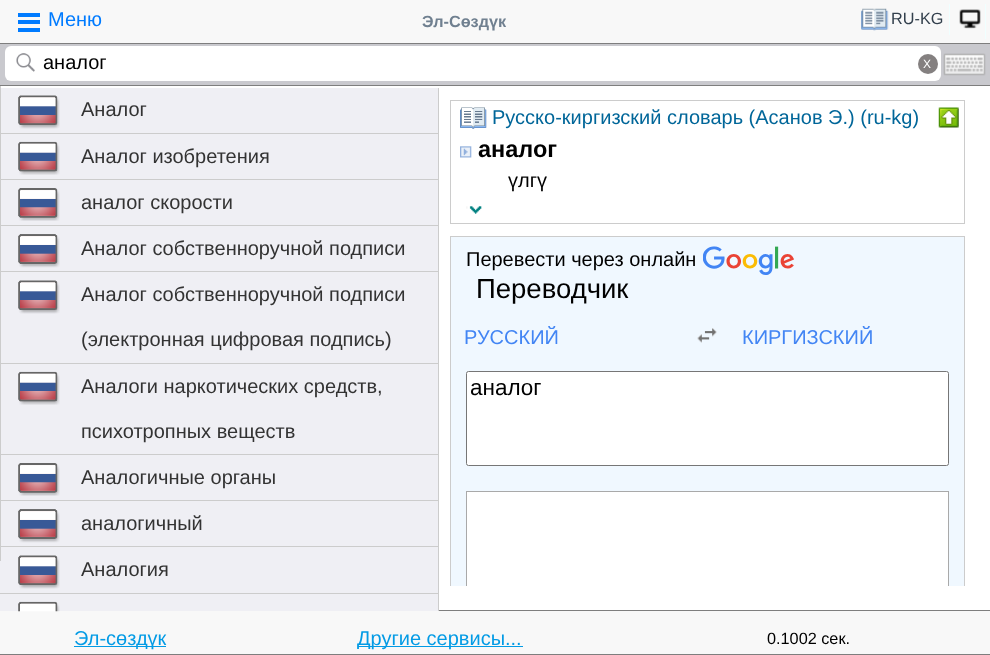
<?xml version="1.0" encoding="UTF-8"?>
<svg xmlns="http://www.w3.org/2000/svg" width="990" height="655">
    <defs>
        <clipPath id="clip1"><rect x="438" y="88" width="540" height="498"/></clipPath>
    </defs>
    <rect width="100%" height="100%" fill="#FFFFFF"/>
    <rect x="0" y="0" width="990" height="43" fill="#F8F8F8"/>
    <rect x="0" y="43" width="990" height="1" fill="#7E7E7E"/>
    <rect x="18" y="13" width="22" height="4" fill="#007BFF"/>
    <rect x="18" y="20" width="22" height="4" fill="#007BFF"/>
    <rect x="18" y="28" width="22" height="4" fill="#007BFF"/>
    <text x="48" y="26" font-family="Liberation Sans" font-size="20" fill="#007BFF">Меню</text>
    <text x="422" y="27" font-family="Liberation Sans" font-size="16.25" font-weight="700" fill="#708090">Эл-Сөздүк</text>
    <rect x="949" y="4" width="1" height="31" fill="#F0FFFF"/>
    <image x="861" y="8" width="28" height="23" href="img_01.png"/>
    <text x="891" y="24" font-family="Liberation Sans" font-size="16.25" fill="#33404D">RU-KG</text>
    <rect x="985" y="4" width="1" height="35" fill="#F0FFFF"/>
    <image x="959" y="9" width="22" height="20" href="img_02.png"/>
    <rect x="0" y="44" width="990" height="41" fill="#C9C9CE"/>
    <rect x="0" y="85" width="990" height="1" fill="#7E7E7E"/>
    <rect x="5" y="46" width="936" height="35" rx="6" fill="#FFFFFF"/>
    <image x="16" y="53" width="19" height="19" href="img_03.png"/>
    <text x="43" y="69" font-family="Liberation Sans" font-size="20" fill="#000000">аналог</text>
    <circle cx="928" cy="64" r="10" fill="#848080"/>
    <text x="923" y="68" font-family="Liberation Sans" font-size="12" fill="#FFFFFF">X</text>
    <image x="943" y="53" width="43" height="23" href="img_04.png"/>
    <rect x="0" y="88" width="438" height="523" fill="#EFEFF4"/>
    <rect x="0" y="133" width="438" height="1" fill="#CCCCCC"/>
    <rect x="0" y="179" width="438" height="1" fill="#CCCCCC"/>
    <rect x="0" y="225" width="438" height="1" fill="#CCCCCC"/>
    <rect x="0" y="271" width="438" height="1" fill="#CCCCCC"/>
    <rect x="0" y="363" width="438" height="1" fill="#CCCCCC"/>
    <rect x="0" y="454" width="438" height="1" fill="#CCCCCC"/>
    <rect x="0" y="500" width="438" height="1" fill="#CCCCCC"/>
    <rect x="0" y="546" width="438" height="1" fill="#CCCCCC"/>
    <rect x="0" y="86" width="1" height="475" fill="#CCCCCC"/>
    <rect x="438" y="88" width="1" height="523" fill="#CCCCCC"/>
    <image x="18" y="95" width="42" height="34" href="img_05.png"/>
    <text x="81" y="116" font-family="Liberation Sans" font-size="20" fill="#333333">Аналог</text>
    <image x="18" y="141" width="42" height="34" href="img_06.png"/>
    <text x="81" y="163" font-family="Liberation Sans" font-size="20" fill="#333333">Аналог изобретения</text>
    <image x="18" y="188" width="42" height="33" href="img_07.png"/>
    <text x="81" y="209" font-family="Liberation Sans" font-size="20" fill="#333333">аналог скорости</text>
    <image x="18" y="234" width="42" height="34" href="img_08.png"/>
    <text x="81" y="255" font-family="Liberation Sans" font-size="20" fill="#333333">Аналог собственноручной подписи</text>
    <image x="18" y="280" width="42" height="34" href="img_05.png"/>
    <text x="81" y="301" font-family="Liberation Sans" font-size="20" fill="#333333">Аналог собственноручной подписи</text>
    <text x="81" y="346" font-family="Liberation Sans" font-size="20" fill="#333333">(электронная цифровая подпись)</text>
    <image x="18" y="371" width="42" height="34" href="img_06.png"/>
    <text x="81" y="393" font-family="Liberation Sans" font-size="20" fill="#333333">Аналоги наркотических средств,</text>
    <text x="81" y="438" font-family="Liberation Sans" font-size="20" fill="#333333">психотропных веществ</text>
    <image x="18" y="463" width="42" height="33" href="img_07.png"/>
    <text x="81" y="484" font-family="Liberation Sans" font-size="20" fill="#333333">Аналогичные органы</text>
    <image x="18" y="509" width="42" height="34" href="img_08.png"/>
    <text x="81" y="530" font-family="Liberation Sans" font-size="20" fill="#333333">аналогичный</text>
    <rect x="0" y="593" width="438" height="1" fill="#CCCCCC"/>
    <image x="18" y="555" width="42" height="34" href="img_05.png"/>
    <text x="81" y="576" font-family="Liberation Sans" font-size="20" fill="#333333">Аналогия</text>
    <rect x="451" y="237" width="513" height="349" fill="#F0F8FF"/>
    <g clip-path="url(#clip1)">
        <rect x="450.5" y="236.5" width="514" height="411" fill="none" stroke="#CCCCCC"/>
    </g>
    <rect x="0" y="611" width="990" height="43" fill="#F8F8F8"/>
    <image x="18" y="601" width="42" height="11" href="img_09.png"/>
    <rect x="450.5" y="100.5" width="514" height="123" fill="none" stroke="#CCCCCC"/>
    <image x="460" y="107" width="27" height="22" href="img_10.png"/>
    <text x="492" y="124" font-family="Liberation Sans" font-size="20" fill="#006699">Русско-киргизский словарь (Асанов Э.) (ru-kg)</text>
    <image x="938" y="107" width="21" height="21" href="img_11.png"/>
    <image x="460" y="146" width="12" height="12" href="img_12.png"/>
    <text x="478" y="157" font-family="Liberation Sans" font-size="23.5" font-weight="700" fill="#000000">аналог</text>
    <text x="508" y="187" font-family="Liberation Sans" font-size="20" fill="#000000">үлгү</text>
    <image x="466" y="206" width="16" height="8" href="img_13.png"/>
    <text x="466" y="266" font-family="Liberation Sans" font-size="20" fill="#000000">Перевести через онлайн</text>
    <image x="703" y="246" width="91" height="29" href="img_14.png"/>
    <text x="476" y="298" font-family="Liberation Sans" font-size="27.5" fill="#000000">Переводчик</text>
    <text x="464" y="344" font-family="Liberation Sans" font-size="20" fill="#4285F4">РУССКИЙ</text>
    <image x="697" y="328" width="20" height="15" href="img_15.png"/>
    <text x="742" y="344" font-family="Liberation Sans" font-size="20" fill="#4285F4">КИРГИЗСКИЙ</text>
    <rect x="466.5" y="371.5" width="482" height="94" rx="2" fill="#FFFFFF" stroke="#767676"/>
    <text x="470" y="395" font-family="Liberation Sans" font-size="22.5" fill="#000000">аналог</text>
    <rect x="467" y="492" width="481" height="94" fill="#FFFFFF"/>
    <g clip-path="url(#clip1)">
        <rect x="466.5" y="491.5" width="482" height="102" fill="none" stroke="#A9A9A9"/>
    </g>
    <rect x="439" y="610" width="551" height="1" fill="#7E7E7E"/>
    <rect x="0" y="654" width="990" height="1" fill="#7E7E7E"/>
    <rect x="74" y="646" width="92" height="1" fill="#039BE5"/>
    <text x="74" y="645" font-family="Liberation Sans" font-size="20" fill="#039BE5">Эл-сөздүк</text>
    <rect x="358" y="646" width="165" height="1" fill="#039BE5"/>
    <text x="357" y="645" font-family="Liberation Sans" font-size="20" fill="#039BE5">Другие сервисы...</text>
    <text x="767" y="644" font-family="Liberation Sans" font-size="16.25" fill="#000000">0.1002 сек.</text>
</svg>
